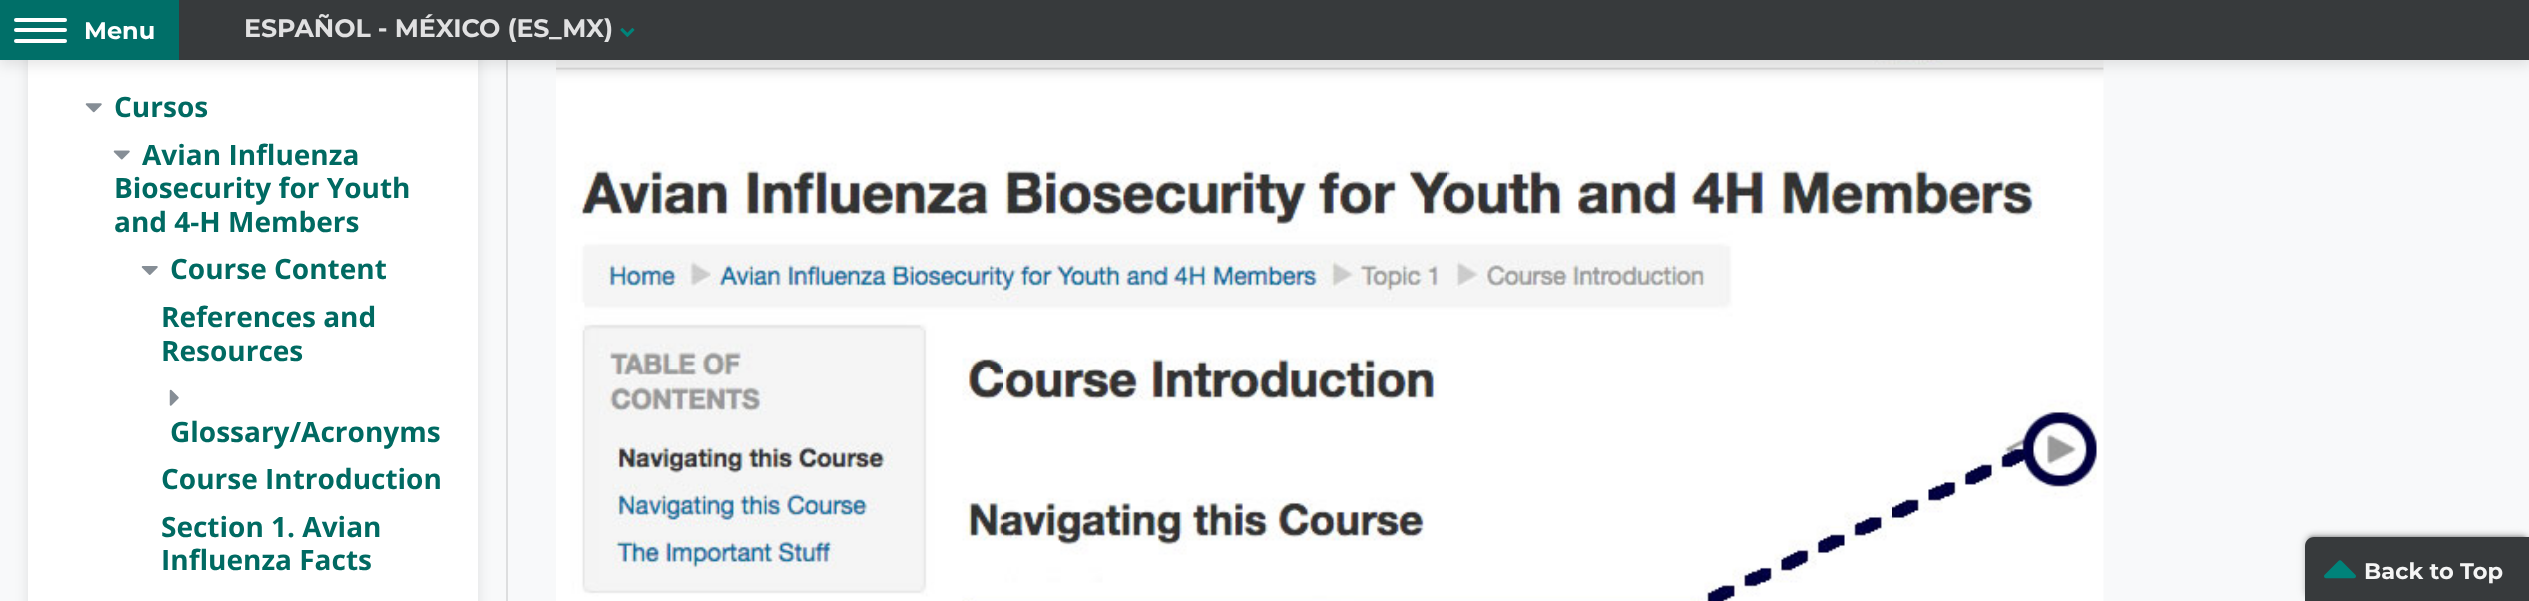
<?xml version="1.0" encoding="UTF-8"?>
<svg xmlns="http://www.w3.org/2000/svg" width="2529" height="601">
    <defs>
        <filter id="blur1" x="-50%" y="-200%" width="200%" height="500%"><feGaussianBlur stdDeviation="7"/></filter>
        <filter id="blur2" x="-50%" y="-200%" width="200%" height="500%"><feGaussianBlur stdDeviation="1"/></filter>
        <filter id="blur3" x="-50%" y="-200%" width="200%" height="500%"><feGaussianBlur stdDeviation="4.5"/></filter>
        <filter id="blur4" x="-50%" y="-200%" width="200%" height="500%"><feGaussianBlur stdDeviation="2.5"/></filter>
    </defs>
    <rect width="100%" height="100%" fill="#F8F9FA"/>
    <rect x="28" y="-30" width="450" height="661" rx="9" fill="#000000" fill-opacity="0.1" filter="url(#blur1)"/>
    <rect x="28" y="60" width="450" height="541" fill="#FFFFFF"/>
    <rect x="507" y="-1" width="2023" height="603" fill="none" stroke="#DDDEDF" stroke-width="2"/>
    <image x="556" y="60" width="1548" height="541" href="img_06.png"/>
    <rect x="0" y="5" width="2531" height="60" fill="#000000" fill-opacity="0.1" filter="url(#blur1)"/>
    <rect x="179" y="0" width="2350" height="60" fill="#373A3C"/>
    <rect x="0" y="0" width="179" height="60" fill="#006F68"/>
    <rect x="14" y="18" width="53" height="4" rx="2" fill="#FFFFFF"/>
    <rect x="14" y="28" width="53" height="4" rx="2" fill="#FFFFFF"/>
    <rect x="14" y="39" width="53" height="4" rx="2" fill="#FFFFFF"/>
    <text x="84" y="39" font-family="Montserrat" font-size="24" font-weight="700" fill="#FFFFFF">Menu</text>
    <text x="244" y="37" font-family="Montserrat" font-size="25.25" font-weight="700" fill="#E1E1E2">ESPAÑOL - MÉXICO (ES_MX)</text>
    <image x="620" y="28" width="15" height="9" href="img_01.png"/>
    <image x="85" y="103" width="17" height="10" href="img_02.png"/>
    <text x="114" y="117" font-family="Open Sans" font-size="28" font-weight="700" fill="#006A62">Cursos</text>
    <image x="113" y="150" width="17" height="10" href="img_03.png"/>
    <text x="142" y="165" font-family="Open Sans" font-size="28" font-weight="700" fill="#006A62">Avian Influenza</text>
    <text font-family="Open Sans" font-size="28" font-weight="700" fill="#006A62">
        <tspan x="114" y="198">Biosecurity for Youth</tspan>
        <tspan x="114" y="232">and 4-H Members</tspan>
    </text>
    <image x="141" y="266" width="17" height="9" href="img_04.png"/>
    <text x="170" y="279" font-family="Open Sans" font-size="28" font-weight="700" fill="#006A62">Course Content</text>
    <text font-family="Open Sans" font-size="28" font-weight="700" fill="#006A62">
        <tspan x="161" y="327">References and</tspan>
        <tspan x="161" y="361">Resources</tspan>
    </text>
    <image x="169" y="389" width="10" height="17" href="img_05.png"/>
    <text x="170" y="442" font-family="Open Sans" font-size="28" font-weight="700" fill="#006A62">Glossary/Acronyms</text>
    <text font-family="Open Sans" font-size="28" font-weight="700" fill="#006A62">
        <tspan x="161" y="489">Course Introduction</tspan>
        <tspan x="161" y="537">Section 1. Avian</tspan>
        <tspan x="161" y="570">Influenza Facts</tspan>
    </text>
    <rect x="2308" y="536" width="219" height="57" rx="5" fill="#000000" fill-opacity="0.2" filter="url(#blur2)"/>
    <rect x="2305" y="536" width="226" height="64" rx="9" fill="#000000" fill-opacity="0.12" filter="url(#blur3)"/>
    <rect x="2305" y="534" width="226" height="65" rx="9" fill="#000000" fill-opacity="0.14" filter="url(#blur4)"/>
    <path d="M 2314 537 H 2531 V 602 H 2305 V 546 C 2305 541 2309 537 2314 537 Z" fill="#373A3C"/>
    <image x="2324" y="560" width="32" height="19" href="img_07.png"/>
    <text x="2364" y="579" font-family="Montserrat" font-size="22.5" font-weight="700" fill="#F5F5F5">Back to Top</text>
</svg>
